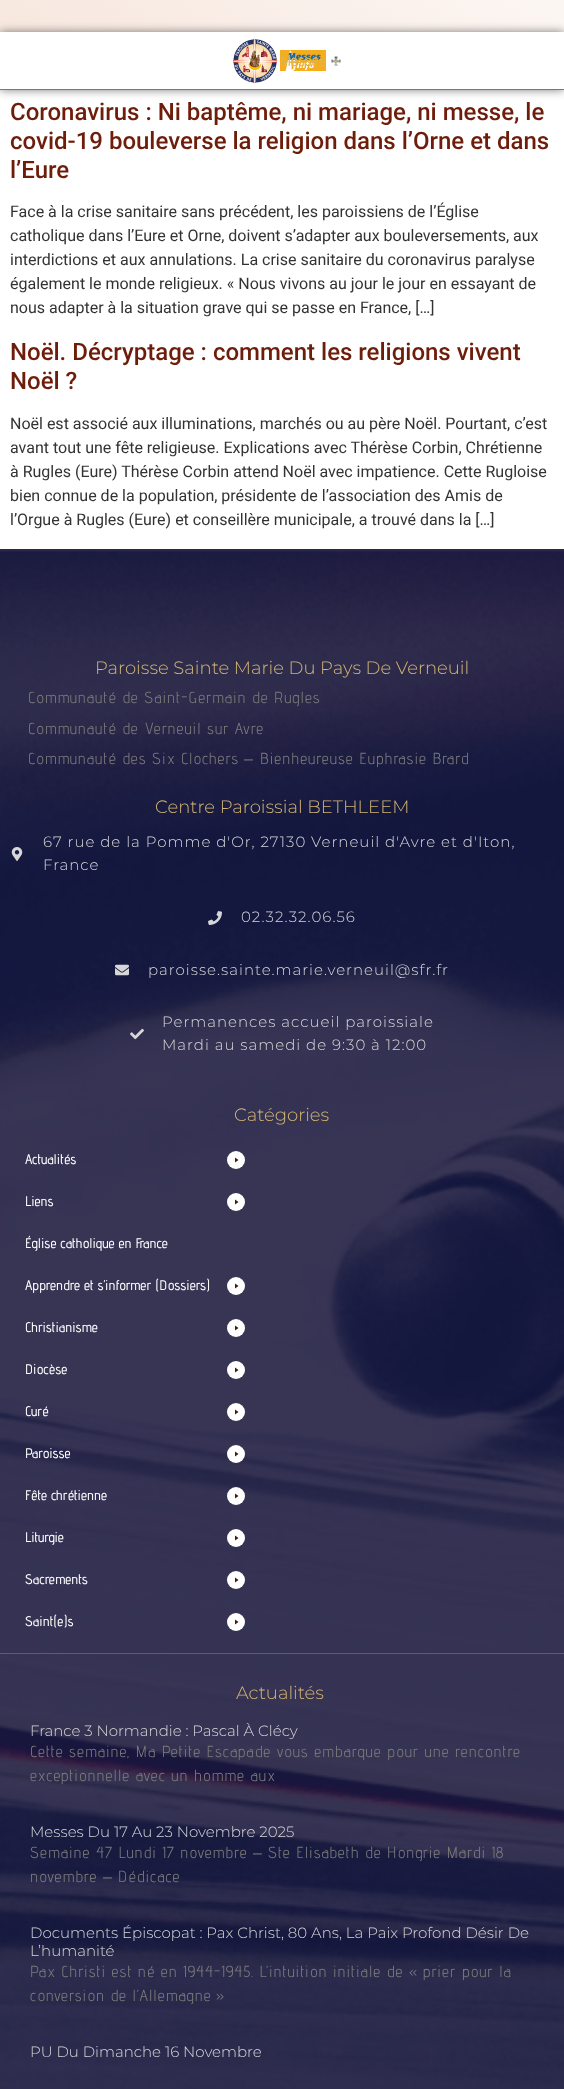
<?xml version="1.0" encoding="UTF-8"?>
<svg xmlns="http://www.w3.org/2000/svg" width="564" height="2089">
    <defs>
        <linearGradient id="g1" gradientUnits="userSpaceOnUse" x1="147" y1="117" x2="417" y2="-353"><stop offset="0" stop-color="#F7E7DE"/><stop offset="0.91" stop-color="#FFFFFF"/></linearGradient>
        <clipPath id="clip1"><path d="M 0 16 H 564 V 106 H 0 Z M 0 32 H 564 V 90 H 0 Z" clip-rule="evenodd"/></clipPath>
        <filter id="blur1" x="-50%" y="-200%" width="200%" height="500%"><feGaussianBlur stdDeviation="5"/></filter>
    </defs>
    <rect width="100%" height="100%" fill="#FFFFFF"/>
    <rect x="0" y="549" width="564" height="3" fill="#39395C"/>
    <rect x="0" y="0" width="564" height="32" fill="url(#g1)"/>
    <g clip-path="url(#clip1)">
        <rect x="0" y="32" width="564" height="58" fill="#000000" fill-opacity="0.5" filter="url(#blur1)"/>
    </g>
    <rect x="0" y="89" width="564" height="1" fill="#DC5049"/>
    <image x="233" y="38" width="45" height="46" href="img_01.png"/>
    <image x="280" y="50" width="46" height="21" href="img_02.png"/>
    <text x="280" y="66" font-family="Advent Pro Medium" font-size="16" font-weight="500" fill="#DCB458">Messes</text>
    <image x="331" y="56" width="10" height="10" href="img_03.png"/>
    <text font-family="Roboto" font-size="24" font-weight="500" fill="#6E1D0B">
        <tspan x="10" y="120">Coronavirus : Ni baptême, ni mariage, ni messe, le</tspan>
        <tspan x="10" y="149">covid-19 bouleverse la religion dans l’Orne et dans</tspan>
        <tspan x="10" y="178">l’Eure</tspan>
    </text>
    <text font-family="Roboto" font-size="16" fill="#333333">
        <tspan x="10" y="217">Face à la crise sanitaire sans précédent, les paroissiens de l’Église</tspan>
        <tspan x="10" y="241">catholique dans l’Eure et Orne, doivent s’adapter aux bouleversements, aux</tspan>
        <tspan x="10" y="265">interdictions et aux annulations. La crise sanitaire du coronavirus paralyse</tspan>
        <tspan x="10" y="289">également le monde religieux. « Nous vivons au jour le jour en essayant de</tspan>
        <tspan x="10" y="313">nous adapter à la situation grave qui se passe en France, […]</tspan>
    </text>
    <text font-family="Roboto" font-size="24" font-weight="500" fill="#6E1D0B">
        <tspan x="10" y="360">Noël. Décryptage : comment les religions vivent</tspan>
        <tspan x="10" y="389">Noël ?</tspan>
    </text>
    <text font-family="Roboto" font-size="16" fill="#333333">
        <tspan x="10" y="429">Noël est associé aux illuminations, marchés ou au père Noël. Pourtant, c’est</tspan>
        <tspan x="10" y="453">avant tout une fête religieuse. Explications avec Thérèse Corbin, Chrétienne</tspan>
        <tspan x="10" y="477">à Rugles (Eure) Thérèse Corbin attend Noël avec impatience. Cette Rugloise</tspan>
        <tspan x="10" y="501">bien connue de la population, présidente de l’association des Amis de</tspan>
        <tspan x="10" y="525">l’Orgue à Rugles (Eure) et conseillère municipale, a trouvé dans la […]</tspan>
    </text>
    <image x="0" y="549" width="564" height="1540" href="img_04.png"/>
    <text x="95" y="674" font-family="Montserrat" font-size="18" font-weight="300" fill="#D3B574">Paroisse Sainte Marie Du Pays De Verneuil</text>
    <text font-family="Advent Pro" font-size="16" letter-spacing="1" fill="#7A7A7A">
        <tspan x="28" y="703">Communauté de Saint-Germain de Rugles</tspan>
        <tspan x="28" y="734">Communauté de Verneuil sur Avre</tspan>
        <tspan x="28" y="764">Communauté des Six Clochers</tspan>
    </text>
    <text x="244" y="764" font-family="Liberation Sans" font-size="16" letter-spacing="1" fill="#7A7A7A">–</text>
    <text x="260" y="764" font-family="Advent Pro" font-size="16" letter-spacing="1" fill="#7A7A7A">Bienheureuse Euphrasie Brard</text>
    <text x="155" y="813" font-family="Montserrat" font-size="18" font-weight="300" fill="#D3B574">Centre Paroissial BETHLEEM</text>
    <image x="11" y="847" width="12" height="14" href="img_05.png"/>
    <text font-family="Montserrat" font-size="15" font-weight="300" letter-spacing="1" fill="#D7D7D9">
        <tspan x="43" y="847">67 rue de la Pomme d'Or, 27130 Verneuil d'Avre et d'Iton,</tspan>
        <tspan x="43" y="870">France</tspan>
    </text>
    <image x="208" y="911" width="14" height="14" href="img_06.png"/>
    <text x="241" y="922" font-family="Montserrat" font-size="15" font-weight="300" letter-spacing="1" fill="#D7D7D9">02.32.32.06.56</text>
    <image x="115" y="964" width="14" height="12" href="img_07.png"/>
    <text x="148" y="975" font-family="Montserrat" font-size="15" font-weight="300" letter-spacing="1" fill="#D7D7D9">paroisse.sainte.marie.verneuil@sfr.fr</text>
    <image x="130" y="1028" width="14" height="12" href="img_08.png"/>
    <text font-family="Montserrat" font-size="15" font-weight="300" letter-spacing="1" fill="#D7D7D9">
        <tspan x="162" y="1027">Permanences accueil paroissiale</tspan>
        <tspan x="162" y="1050">Mardi au samedi de 9:30 à 12:00</tspan>
    </text>
    <text x="234" y="1121" font-family="Montserrat" font-size="18" font-weight="300" fill="#D3B574">Catégories</text>
    <text x="25" y="1164" font-family="Advent Pro Medium" font-size="14" font-weight="500" fill="#FFFFFF">Actualités</text>
    <circle cx="236" cy="1160" r="9" fill="#FFFFFF"/>
    <path d="M 235 1157.5 L 238.5 1160 L 235 1162.5 Z" fill="#421B12"/>
    <text x="25" y="1206" font-family="Advent Pro Medium" font-size="14" font-weight="500" fill="#FFFFFF">Liens</text>
    <circle cx="236" cy="1202" r="9" fill="#FFFFFF"/>
    <path d="M 235 1199.5 L 238.5 1202 L 235 1204.5 Z" fill="#421B12"/>
    <text x="25" y="1248" font-family="Advent Pro Medium" font-size="14" font-weight="500" fill="#FFFFFF">Église catholique en France</text>
    <text x="25" y="1290" font-family="Advent Pro Medium" font-size="14" font-weight="500" fill="#FFFFFF">Apprendre et s’informer (Dossiers)</text>
    <circle cx="236" cy="1286" r="9" fill="#FFFFFF"/>
    <path d="M 235 1283.5 L 238.5 1286 L 235 1288.5 Z" fill="#421B12"/>
    <text x="25" y="1332" font-family="Advent Pro Medium" font-size="14" font-weight="500" fill="#FFFFFF">Christianisme</text>
    <circle cx="236" cy="1328" r="9" fill="#FFFFFF"/>
    <path d="M 235 1325.5 L 238.5 1328 L 235 1330.5 Z" fill="#421B12"/>
    <text x="25" y="1374" font-family="Advent Pro Medium" font-size="14" font-weight="500" fill="#FFFFFF">Diocèse</text>
    <circle cx="236" cy="1370" r="9" fill="#FFFFFF"/>
    <path d="M 235 1367.5 L 238.5 1370 L 235 1372.5 Z" fill="#421B12"/>
    <text x="25" y="1416" font-family="Advent Pro Medium" font-size="14" font-weight="500" fill="#FFFFFF">Curé</text>
    <circle cx="236" cy="1412" r="9" fill="#FFFFFF"/>
    <path d="M 235 1409.5 L 238.5 1412 L 235 1414.5 Z" fill="#421B12"/>
    <text x="25" y="1458" font-family="Advent Pro Medium" font-size="14" font-weight="500" fill="#FFFFFF">Paroisse</text>
    <circle cx="236" cy="1454" r="9" fill="#FFFFFF"/>
    <path d="M 235 1451.5 L 238.5 1454 L 235 1456.5 Z" fill="#421B12"/>
    <text x="25" y="1500" font-family="Advent Pro Medium" font-size="14" font-weight="500" fill="#FFFFFF">Fête chrétienne</text>
    <circle cx="236" cy="1496" r="9" fill="#FFFFFF"/>
    <path d="M 235 1493.5 L 238.5 1496 L 235 1498.5 Z" fill="#421B12"/>
    <text x="25" y="1542" font-family="Advent Pro Medium" font-size="14" font-weight="500" fill="#FFFFFF">Liturgie</text>
    <circle cx="236" cy="1538" r="9" fill="#FFFFFF"/>
    <path d="M 235 1535.5 L 238.5 1538 L 235 1540.5 Z" fill="#421B12"/>
    <text x="25" y="1584" font-family="Advent Pro Medium" font-size="14" font-weight="500" fill="#FFFFFF">Sacrements</text>
    <circle cx="236" cy="1580" r="9" fill="#FFFFFF"/>
    <path d="M 235 1577.5 L 238.5 1580 L 235 1582.5 Z" fill="#421B12"/>
    <text x="25" y="1626" font-family="Advent Pro Medium" font-size="14" font-weight="500" fill="#FFFFFF">Saint(e)s</text>
    <circle cx="236" cy="1622" r="9" fill="#FFFFFF"/>
    <path d="M 235 1619.5 L 238.5 1622 L 235 1624.5 Z" fill="#421B12"/>
    <rect x="0" y="1653" width="564" height="1" fill="#5D5B76"/>
    <text x="236" y="1699" font-family="Montserrat" font-size="18" font-weight="300" fill="#D3B574">Actualités</text>
    <text x="30" y="1736" font-family="Montserrat" font-size="15" font-weight="300" fill="#D7D7D9">France 3 Normandie : Pascal À Clécy</text>
    <text font-family="Advent Pro" font-size="16" letter-spacing="1" fill="#7A7A7A">
        <tspan x="30" y="1757">Cette semaine, Ma Petite Escapade vous embarque pour une rencontre</tspan>
        <tspan x="30" y="1781">exceptionnelle avec un homme aux</tspan>
    </text>
    <text x="30" y="1837" font-family="Montserrat" font-size="15" font-weight="300" fill="#D7D7D9">Messes Du 17 Au 23 Novembre 2025</text>
    <text x="30" y="1858" font-family="Advent Pro" font-size="16" letter-spacing="1" fill="#7A7A7A">Semaine 47 Lundi 17 novembre</text>
    <text x="253" y="1858" font-family="Liberation Sans" font-size="16" letter-spacing="1" fill="#7A7A7A">–</text>
    <text x="268" y="1858" font-family="Advent Pro" font-size="16" letter-spacing="1" fill="#7A7A7A">Ste Elisabeth de Hongrie Mardi 18</text>
    <text x="30" y="1882" font-family="Advent Pro" font-size="16" letter-spacing="1" fill="#7A7A7A">novembre</text>
    <text x="103" y="1882" font-family="Liberation Sans" font-size="16" letter-spacing="1" fill="#7A7A7A">–</text>
    <text x="118" y="1882" font-family="Advent Pro" font-size="16" letter-spacing="1" fill="#7A7A7A">Dédicace</text>
    <text font-family="Montserrat" font-size="15" font-weight="300" fill="#D7D7D9">
        <tspan x="30" y="1938">Documents Épiscopat : Pax Christ, 80 Ans, La Paix Profond Désir De</tspan>
        <tspan x="30" y="1956">L’humanité</tspan>
    </text>
    <text font-family="Advent Pro" font-size="16" letter-spacing="1" fill="#7A7A7A">
        <tspan x="30" y="1977">Pax Christi est né en 1944-1945. L’intuition initiale de « prier pour la</tspan>
        <tspan x="30" y="2001">conversion de l’Allemagne »</tspan>
    </text>
    <text x="30" y="2057" font-family="Montserrat" font-size="15" font-weight="300" fill="#D7D7D9">PU Du Dimanche 16 Novembre</text>
</svg>
